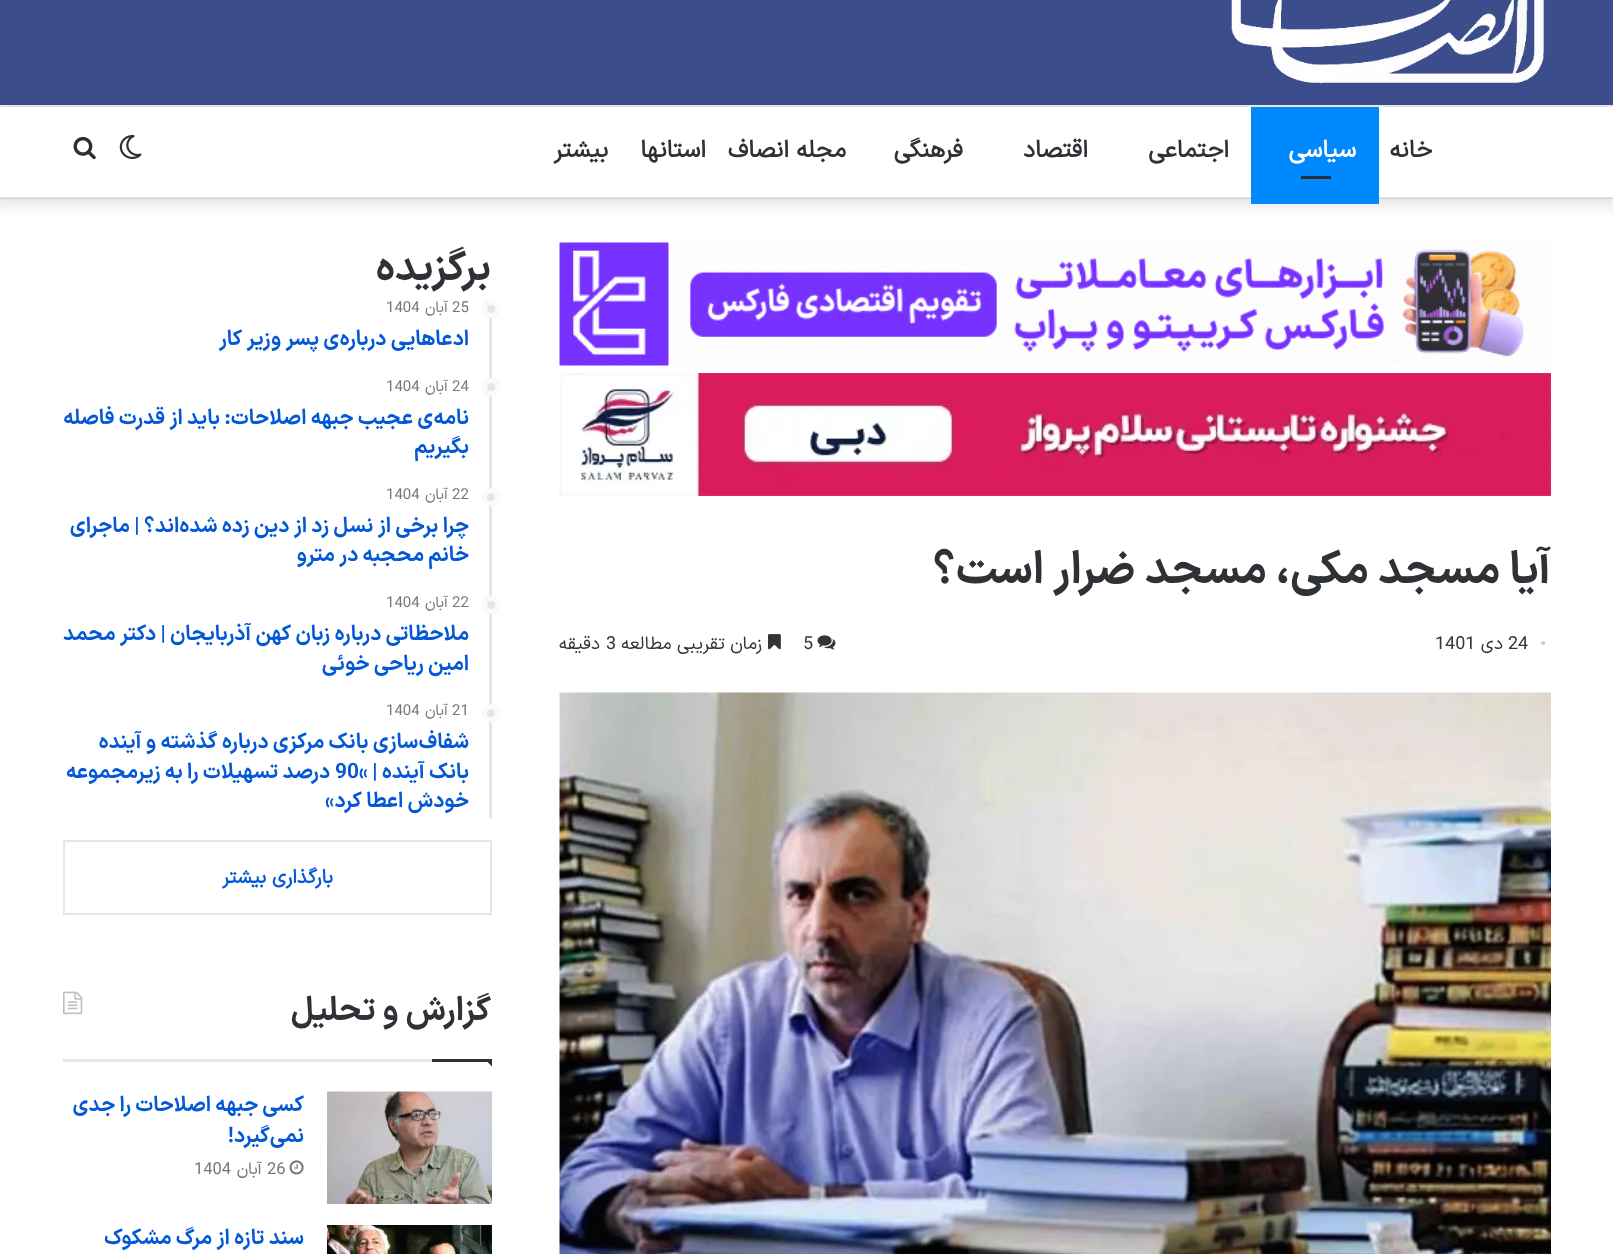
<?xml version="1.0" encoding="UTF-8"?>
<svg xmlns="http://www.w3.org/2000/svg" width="1613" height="1254">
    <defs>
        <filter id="blur1" x="-50%" y="-200%" width="200%" height="500%"><feGaussianBlur stdDeviation="7.5"/></filter>
    </defs>
    <rect width="100%" height="100%" fill="#FFFFFF"/>
    <rect x="-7" y="-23" width="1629" height="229" fill="#000000" fill-opacity="0.1" filter="url(#blur1)"/>
    <rect x="0" y="0" width="1613" height="105" fill="#3B4D8B"/>
    <image x="1231" y="0" width="314" height="84" href="img_01.png"/>
    <rect x="0" y="107" width="1613" height="91" fill="#FFFFFF"/>
    <rect x="0" y="105" width="2" height="2" fill="#E6E6E6"/>
    <rect x="0" y="197" width="1613" height="2" fill="#000000" fill-opacity="0.1"/>
    <text x="1432" y="157" font-family="'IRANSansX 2'" font-size="24" font-weight="700" direction="rtl" fill="#2E3136">خانه</text>
    <rect x="1251" y="107" width="128" height="97" fill="#0088FF"/>
    <text x="1356" y="157" font-family="'IRANSansX 2'" font-size="24" font-weight="700" direction="rtl" fill="#FFFFFF">سیاسی</text>
    <rect x="1301" y="176" width="30" height="3" fill="#2C2F34"/>
    <text x="1229" y="157" font-family="'IRANSansX 2'" font-size="24" font-weight="700" direction="rtl" fill="#2E3136">اجتماعی</text>
    <text x="1088" y="157" font-family="'IRANSansX 2'" font-size="24" font-weight="700" direction="rtl" fill="#2E3136">اقتصاد</text>
    <text x="963" y="157" font-family="'IRANSansX 2'" font-size="24" font-weight="700" direction="rtl" fill="#2E3136">فرهنگی</text>
    <text x="846" y="157" font-family="'IRANSansX 2'" font-size="24" font-weight="700" direction="rtl" fill="#2E3136">مجله انصاف</text>
    <text x="706" y="157" font-family="'IRANSansX 2'" font-size="24" font-weight="700" direction="rtl" fill="#2E3136">استانها</text>
    <text x="608" y="157" font-family="'IRANSansX 2'" font-size="24" font-weight="700" direction="rtl" fill="#2E3136">بیشتر</text>
    <image x="119" y="135" width="23" height="24" href="img_02.png"/>
    <image x="73" y="136" width="23" height="24" href="img_03.png"/>
    <image x="559" y="242" width="992" height="124" href="img_04.png"/>
    <image x="559" y="373" width="992" height="123" href="img_05.png"/>
    <text x="1551" y="583" font-family="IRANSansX" font-size="45" font-weight="700" direction="rtl" fill="#2E3136">آیا مسجد مکی، مسجد ضرار است؟</text>
    <text x="1540" y="649" font-family="Liberation Serif" font-size="18" fill="#CDCDCD">•</text>
    <text x="1508" y="649" font-family="IRANSansX" font-size="18" fill="#353535">24</text>
    <text x="1503" y="649" font-family="IRANSansX" font-size="18" direction="rtl" fill="#353535">دی</text>
    <text x="1435" y="649" font-family="IRANSansX" font-size="18" fill="#353535">1401</text>
    <image x="817" y="635" width="19" height="15" href="img_06.png"/>
    <text x="803" y="649" font-family="IRANSansX" font-size="18" fill="#353535">5</text>
    <image x="768" y="634" width="13" height="16" href="img_07.png"/>
    <text x="762" y="649" font-family="IRANSansX" font-size="18" direction="rtl" fill="#353535">زمان تقریبی مطالعه</text>
    <text x="606" y="649" font-family="IRANSansX" font-size="18" fill="#353535">3</text>
    <text x="600" y="649" font-family="IRANSansX" font-size="18" direction="rtl" fill="#353535">دقیقه</text>
    <image x="559" y="692" width="992" height="562" href="img_08.png"/>
    <text x="491" y="280" font-family="IRANSansX" font-size="40.5" font-weight="700" direction="rtl" fill="#2E3136">برگزیده</text>
    <rect x="489" y="300" width="3" height="518" fill="#E6E6E6"/>
    <circle cx="491" cy="309" r="9" fill="#E6E6E6"/>
    <circle cx="491" cy="309" r="6.5" fill="none" stroke="#FFFFFF" stroke-opacity="0.8" stroke-width="5"/>
    <text x="452" y="312" font-family="IRANSansX" font-size="15" fill="#777777">25</text>
    <text x="448" y="312" font-family="IRANSansX" font-size="15" direction="rtl" fill="#777777">آبان</text>
    <text x="386" y="312" font-family="IRANSansX" font-size="15" fill="#777777">1404</text>
    <text x="469" y="345" font-family="IRANSansX" font-size="21" font-weight="700" direction="rtl" fill="#0358D8">ادعاهایی درباره‌ی پسر وزیر کار</text>
    <circle cx="491" cy="387" r="9" fill="#E6E6E6"/>
    <circle cx="491" cy="387" r="6.5" fill="none" stroke="#FFFFFF" stroke-opacity="0.8" stroke-width="5"/>
    <text x="452" y="391" font-family="IRANSansX" font-size="15" fill="#777777">24</text>
    <text x="448" y="391" font-family="IRANSansX" font-size="15" direction="rtl" fill="#777777">آبان</text>
    <text x="386" y="391" font-family="IRANSansX" font-size="15" fill="#777777">1404</text>
    <text font-family="IRANSansX" font-size="21" font-weight="700" direction="rtl" fill="#0358D8">
        <tspan x="469" y="424">نامه‌ی عجیب جبهه اصلاحات: باید از قدرت فاصله</tspan>
        <tspan x="469" y="453">بگیریم</tspan>
    </text>
    <circle cx="491" cy="497" r="9" fill="#E6E6E6"/>
    <circle cx="491" cy="497" r="6.5" fill="none" stroke="#FFFFFF" stroke-opacity="0.8" stroke-width="5"/>
    <text x="452" y="499" font-family="IRANSansX" font-size="15" fill="#777777">22</text>
    <text x="448" y="499" font-family="IRANSansX" font-size="15" direction="rtl" fill="#777777">آبان</text>
    <text x="386" y="499" font-family="IRANSansX" font-size="15" fill="#777777">1404</text>
    <text font-family="IRANSansX" font-size="21" font-weight="700" direction="rtl" fill="#0358D8">
        <tspan x="469" y="532">چرا برخی از نسل زد از دین زده شده‌اند؟ | ماجرای</tspan>
        <tspan x="469" y="561">خانم محجبه در مترو</tspan>
    </text>
    <circle cx="491" cy="605" r="9" fill="#E6E6E6"/>
    <circle cx="491" cy="605" r="6.5" fill="none" stroke="#FFFFFF" stroke-opacity="0.8" stroke-width="5"/>
    <text x="452" y="607" font-family="IRANSansX" font-size="15" fill="#777777">22</text>
    <text x="448" y="607" font-family="IRANSansX" font-size="15" direction="rtl" fill="#777777">آبان</text>
    <text x="386" y="607" font-family="IRANSansX" font-size="15" fill="#777777">1404</text>
    <text font-family="IRANSansX" font-size="21" font-weight="700" direction="rtl" fill="#0358D8">
        <tspan x="469" y="640">ملاحظاتی درباره زبان کهن آذربایجان | دکتر محمد</tspan>
        <tspan x="469" y="670">امین ریاحی خوئی</tspan>
    </text>
    <circle cx="491" cy="713" r="9" fill="#E6E6E6"/>
    <circle cx="491" cy="713" r="6.5" fill="none" stroke="#FFFFFF" stroke-opacity="0.8" stroke-width="5"/>
    <text x="452" y="715" font-family="IRANSansX" font-size="15" fill="#777777">21</text>
    <text x="448" y="715" font-family="IRANSansX" font-size="15" direction="rtl" fill="#777777">آبان</text>
    <text x="386" y="715" font-family="IRANSansX" font-size="15" fill="#777777">1404</text>
    <text font-family="IRANSansX" font-size="21" font-weight="700" direction="rtl" fill="#0358D8">
        <tspan x="469" y="748">شفاف‌سازی بانک مرکزی درباره گذشته و آینده</tspan>
        <tspan x="469" y="778">بانک آینده |</tspan>
    </text>
    <text x="335" y="778" font-family="IRANSansX" font-size="21" font-weight="700" fill="#0358D8">90«</text>
    <text x="330" y="778" font-family="IRANSansX" font-size="21" font-weight="700" direction="rtl" fill="#0358D8">درصد تسهیلات را به زیرمجموعه</text>
    <text x="469" y="807" font-family="IRANSansX" font-size="21" font-weight="700" direction="rtl" fill="#0358D8">خودش اعطا کرد»</text>
    <rect x="64" y="841" width="427" height="73" fill="none" stroke="#E6E6E6" stroke-width="2"/>
    <text x="333" y="883" font-family="'IRANSansX 2'" font-size="19.5" font-weight="700" direction="rtl" fill="#0358D8">بارگذاری بیشتر</text>
    <rect x="63" y="1059" width="369" height="3" fill="#E6E6E6"/>
    <text x="491" y="1020" font-family="IRANSansX" font-size="33" font-weight="700" direction="rtl" fill="#2E3136">گزارش و تحلیل</text>
    <image x="63" y="991" width="20" height="24" href="img_09.png"/>
    <path d="M 484.5 1059 H 492 V 1066.5 Z" fill="#2E3136"/>
    <rect x="432" y="1059" width="60" height="3" fill="#2E3136"/>
    <image x="327" y="1091" width="165" height="113" href="img_10.png"/>
    <text font-family="IRANSansX" font-size="21" font-weight="700" direction="rtl" fill="#0358D8">
        <tspan x="304" y="1111">کسی جبهه اصلاحات را جدی</tspan>
        <tspan x="304" y="1142">نمی‌گیرد!</tspan>
    </text>
    <image x="289" y="1160" width="15" height="15" href="img_11.png"/>
    <text x="267" y="1174" font-family="IRANSansX" font-size="16.5" fill="#777777">26</text>
    <text x="262" y="1174" font-family="IRANSansX" font-size="16.5" direction="rtl" fill="#777777">آبان</text>
    <text x="194" y="1174" font-family="IRANSansX" font-size="16.5" fill="#777777">1404</text>
    <image x="327" y="1225" width="165" height="29" href="img_12.png"/>
    <text x="304" y="1244" font-family="IRANSansX" font-size="21" font-weight="700" direction="rtl" fill="#0358D8">سند تازه از مرگ مشکوک</text>
</svg>
